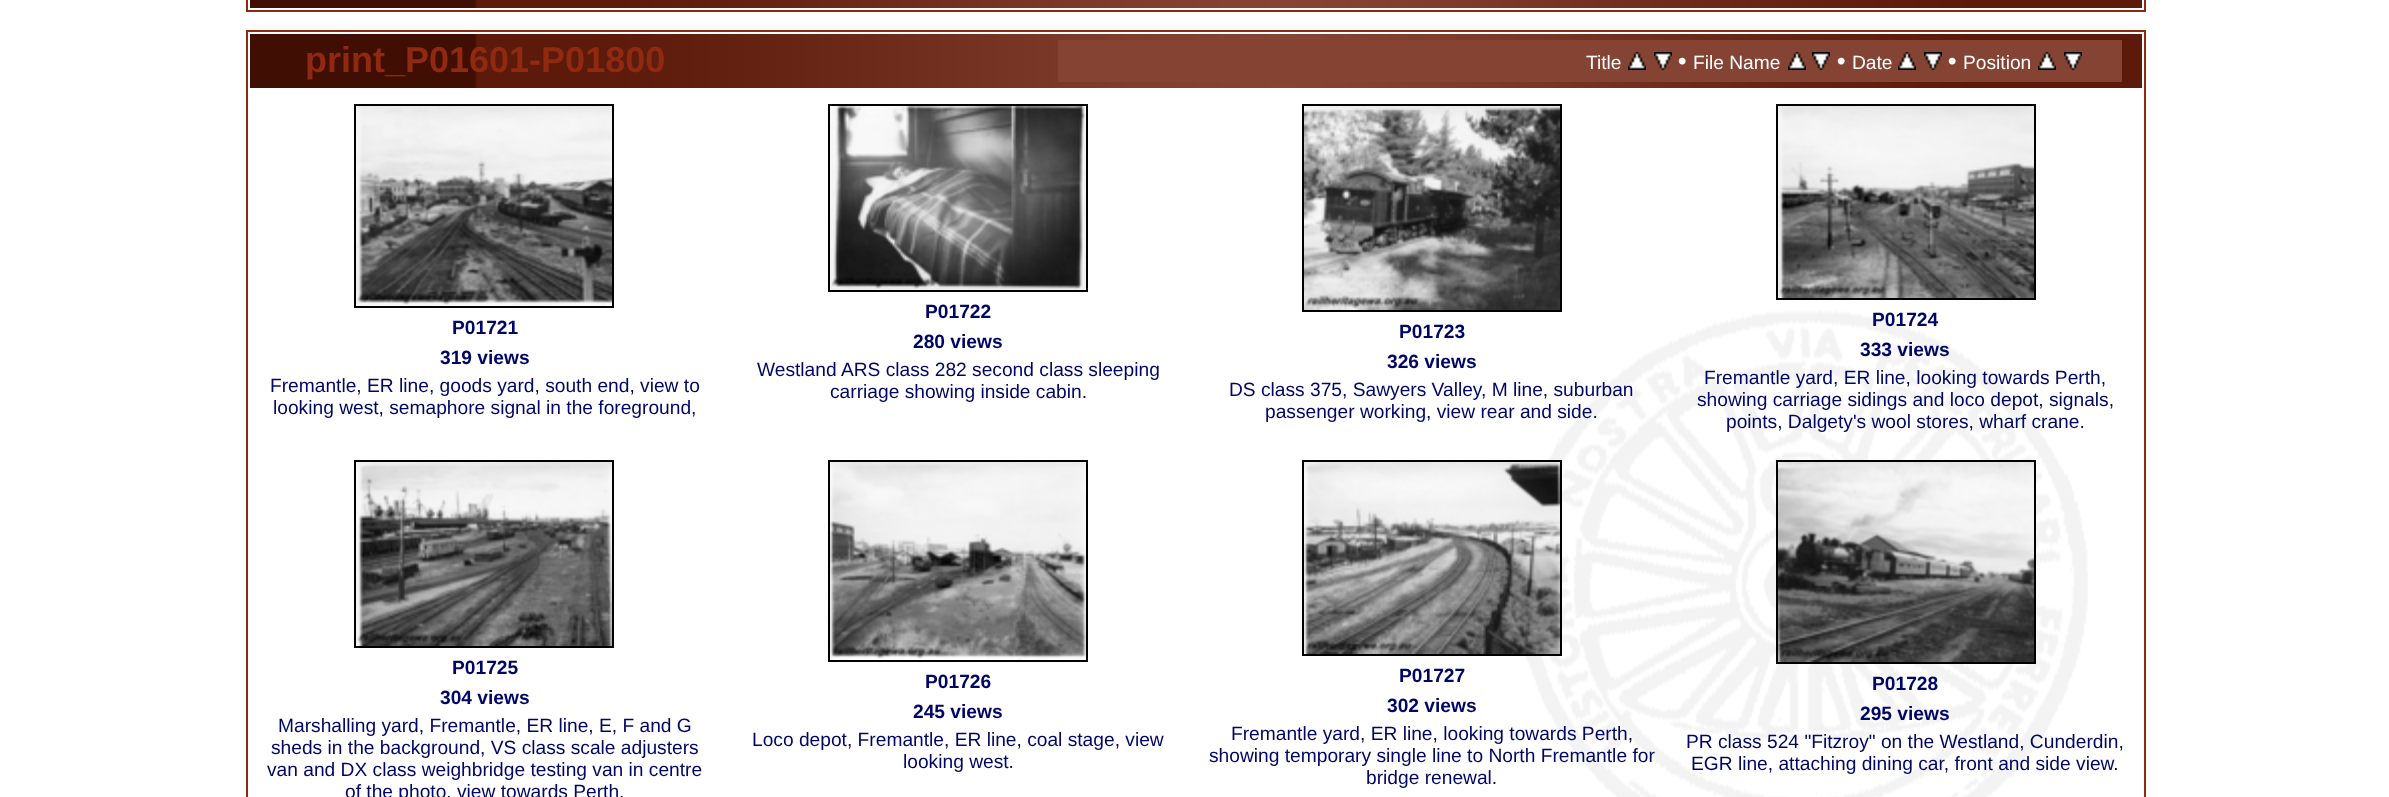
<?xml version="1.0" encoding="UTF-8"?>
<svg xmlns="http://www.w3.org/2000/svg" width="2389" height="797">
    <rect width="100%" height="100%" fill="#FFFFFF"/>
    <image x="1518" y="310" width="570" height="487" href="img_01.png"/>
    <rect x="247" y="-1" width="1898" height="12" fill="none" stroke="#8F2910" stroke-width="2"/>
    <image x="250" y="0" width="1892" height="8" href="img_02.png"/>
    <rect x="247" y="31" width="1898" height="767" fill="none" stroke="#8F2910" stroke-width="2"/>
    <image x="250" y="34" width="1892" height="54" href="img_03.png"/>
    <text x="305" y="72" font-family="Liberation Sans" font-size="36" font-weight="700" fill="#8F2910">print_P01601-P01800</text>
    <rect x="1058" y="40" width="1064" height="42" fill="#854333"/>
    <text x="1586" y="69" font-family="Liberation Sans" font-size="19.2" fill="#FFFFFF">Title</text>
    <image x="1628" y="52" width="18" height="18" href="img_04.png"/>
    <image x="1654" y="52" width="18" height="18" href="img_05.png"/>
    <text x="1678" y="69" font-family="Liberation Sans" font-size="24" font-weight="700" fill="#FFFFFF">•</text>
    <text x="1693" y="69" font-family="Liberation Sans" font-size="19.2" fill="#FFFFFF">File Name</text>
    <image x="1788" y="52" width="18" height="18" href="img_04.png"/>
    <image x="1812" y="52" width="18" height="18" href="img_05.png"/>
    <text x="1837" y="69" font-family="Liberation Sans" font-size="24" font-weight="700" fill="#FFFFFF">•</text>
    <text x="1852" y="69" font-family="Liberation Sans" font-size="19.2" fill="#FFFFFF">Date</text>
    <image x="1898" y="52" width="18" height="18" href="img_04.png"/>
    <image x="1924" y="52" width="18" height="18" href="img_05.png"/>
    <text x="1948" y="69" font-family="Liberation Sans" font-size="24" font-weight="700" fill="#FFFFFF">•</text>
    <text x="1963" y="69" font-family="Liberation Sans" font-size="19.2" fill="#FFFFFF">Position</text>
    <image x="2038" y="52" width="18" height="18" href="img_04.png"/>
    <image x="2064" y="52" width="18" height="18" href="img_05.png"/>
    <rect x="355" y="105" width="258" height="202" fill="none" stroke="#000000" stroke-width="2"/>
    <image x="356" y="106" width="256" height="200" href="img_06.png"/>
    <text x="452" y="334" font-family="Liberation Sans" font-size="19.2" font-weight="700" fill="#000666">P01721</text>
    <text x="440" y="364" font-family="Liberation Sans" font-size="19.2" font-weight="700" fill="#000666">319 views</text>
    <text x="270" y="392" font-family="Liberation Sans" font-size="19.2" fill="#000666">Fremantle, ER line, goods yard, south end, view to</text>
    <text x="273" y="414" font-family="Liberation Sans" font-size="19.2" fill="#000666">looking west, semaphore signal in the foreground,</text>
    <rect x="829" y="105" width="258" height="186" fill="none" stroke="#000000" stroke-width="2"/>
    <image x="830" y="106" width="256" height="184" href="img_07.png"/>
    <text x="925" y="318" font-family="Liberation Sans" font-size="19.2" font-weight="700" fill="#000666">P01722</text>
    <text x="913" y="348" font-family="Liberation Sans" font-size="19.2" font-weight="700" fill="#000666">280 views</text>
    <text x="757" y="376" font-family="Liberation Sans" font-size="19.2" fill="#000666">Westland ARS class 282 second class sleeping</text>
    <text x="830" y="398" font-family="Liberation Sans" font-size="19.2" fill="#000666">carriage showing inside cabin.</text>
    <rect x="1303" y="105" width="258" height="206" fill="none" stroke="#000000" stroke-width="2"/>
    <image x="1304" y="106" width="256" height="204" href="img_08.png"/>
    <text x="1399" y="338" font-family="Liberation Sans" font-size="19.2" font-weight="700" fill="#000666">P01723</text>
    <text x="1387" y="368" font-family="Liberation Sans" font-size="19.2" font-weight="700" fill="#000666">326 views</text>
    <text x="1229" y="396" font-family="Liberation Sans" font-size="19.2" fill="#000666">DS class 375, Sawyers Valley, M line, suburban</text>
    <text x="1265" y="418" font-family="Liberation Sans" font-size="19.2" fill="#000666">passenger working, view rear and side.</text>
    <rect x="1777" y="105" width="258" height="194" fill="none" stroke="#000000" stroke-width="2"/>
    <image x="1778" y="106" width="256" height="192" href="img_09.png"/>
    <text x="1872" y="326" font-family="Liberation Sans" font-size="19.2" font-weight="700" fill="#000666">P01724</text>
    <text x="1860" y="356" font-family="Liberation Sans" font-size="19.2" font-weight="700" fill="#000666">333 views</text>
    <text x="1704" y="384" font-family="Liberation Sans" font-size="19.2" fill="#000666">Fremantle yard, ER line, looking towards Perth,</text>
    <text x="1697" y="406" font-family="Liberation Sans" font-size="19.2" fill="#000666">showing carriage sidings and loco depot, signals,</text>
    <text x="1726" y="428" font-family="Liberation Sans" font-size="19.2" fill="#000666">points, Dalgety's wool stores, wharf crane.</text>
    <rect x="355" y="461" width="258" height="186" fill="none" stroke="#000000" stroke-width="2"/>
    <image x="356" y="462" width="256" height="184" href="img_10.png"/>
    <text x="452" y="674" font-family="Liberation Sans" font-size="19.2" font-weight="700" fill="#000666">P01725</text>
    <text x="440" y="704" font-family="Liberation Sans" font-size="19.2" font-weight="700" fill="#000666">304 views</text>
    <text x="278" y="732" font-family="Liberation Sans" font-size="19.2" fill="#000666">Marshalling yard, Fremantle, ER line, E, F and G</text>
    <text x="271" y="754" font-family="Liberation Sans" font-size="19.2" fill="#000666">sheds in the background, VS class scale adjusters</text>
    <text x="267" y="776" font-family="Liberation Sans" font-size="19.2" fill="#000666">van and DX class weighbridge testing van in centre</text>
    <text x="345" y="798" font-family="Liberation Sans" font-size="19.2" fill="#000666">of the photo, view towards Perth.</text>
    <rect x="829" y="461" width="258" height="200" fill="none" stroke="#000000" stroke-width="2"/>
    <image x="830" y="462" width="256" height="198" href="img_11.png"/>
    <text x="925" y="688" font-family="Liberation Sans" font-size="19.2" font-weight="700" fill="#000666">P01726</text>
    <text x="913" y="718" font-family="Liberation Sans" font-size="19.2" font-weight="700" fill="#000666">245 views</text>
    <text x="752" y="746" font-family="Liberation Sans" font-size="19.2" fill="#000666">Loco depot, Fremantle, ER line, coal stage, view</text>
    <text x="903" y="768" font-family="Liberation Sans" font-size="19.2" fill="#000666">looking west.</text>
    <rect x="1303" y="461" width="258" height="194" fill="none" stroke="#000000" stroke-width="2"/>
    <image x="1304" y="462" width="256" height="192" href="img_12.png"/>
    <text x="1399" y="682" font-family="Liberation Sans" font-size="19.2" font-weight="700" fill="#000666">P01727</text>
    <text x="1387" y="712" font-family="Liberation Sans" font-size="19.2" font-weight="700" fill="#000666">302 views</text>
    <text x="1231" y="740" font-family="Liberation Sans" font-size="19.2" fill="#000666">Fremantle yard, ER line, looking towards Perth,</text>
    <text x="1209" y="762" font-family="Liberation Sans" font-size="19.2" fill="#000666">showing temporary single line to North Fremantle for</text>
    <text x="1366" y="784" font-family="Liberation Sans" font-size="19.2" fill="#000666">bridge renewal.</text>
    <rect x="1777" y="461" width="258" height="202" fill="none" stroke="#000000" stroke-width="2"/>
    <image x="1778" y="462" width="256" height="200" href="img_13.png"/>
    <text x="1872" y="690" font-family="Liberation Sans" font-size="19.2" font-weight="700" fill="#000666">P01728</text>
    <text x="1860" y="720" font-family="Liberation Sans" font-size="19.2" font-weight="700" fill="#000666">295 views</text>
    <text x="1686" y="748" font-family="Liberation Sans" font-size="19.2" fill="#000666">PR class 524 "Fitzroy" on the Westland, Cunderdin,</text>
    <text x="1691" y="770" font-family="Liberation Sans" font-size="19.2" fill="#000666">EGR line, attaching dining car, front and side view.</text>
</svg>
